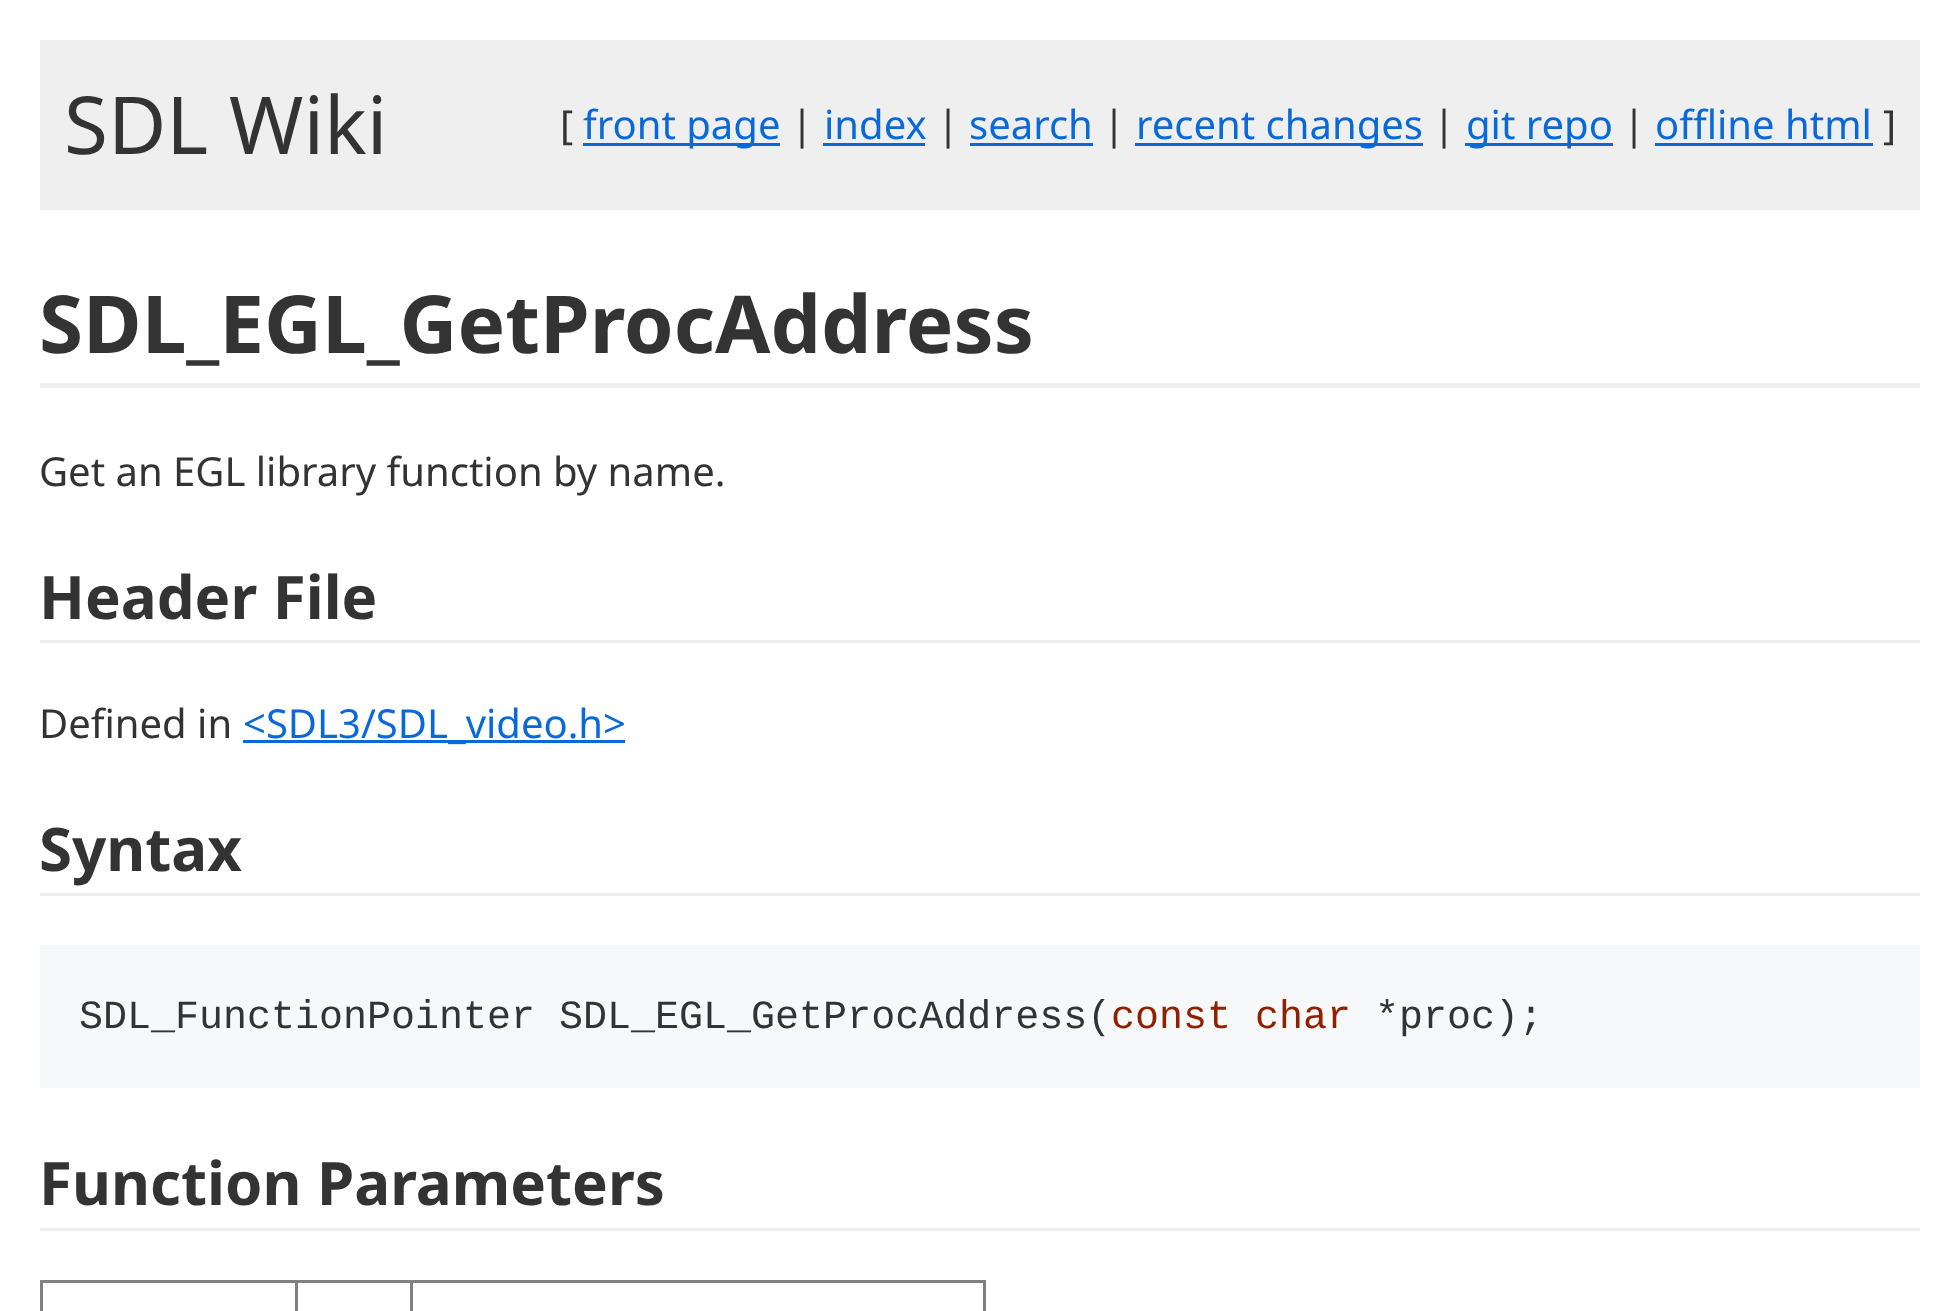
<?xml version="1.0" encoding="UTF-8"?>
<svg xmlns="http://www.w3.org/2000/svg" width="1958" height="1311">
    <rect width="100%" height="100%" fill="#FFFFFF"/>
    <rect x="40" y="40" width="1880" height="170" fill="#EFEFEF"/>
    <text x="64" y="154" font-family="Noto Sans" font-size="80" fill="#333333">SDL Wiki</text>
    <text x="560" y="139" font-family="Noto Sans" font-size="40" fill="#333333">[</text>
    <rect x="583" y="143" width="197" height="3" fill="#0969DA"/>
    <text x="583" y="139" font-family="Noto Sans" font-size="40" fill="#0969DA">front page</text>
    <text x="791" y="139" font-family="Noto Sans" font-size="40" fill="#333333">|</text>
    <text x="824" y="139" font-family="Noto Sans" font-size="40" fill="#0969DA">index</text>
    <rect x="823" y="143" width="102" height="3" fill="#0969DA"/>
    <text x="937" y="139" font-family="Noto Sans" font-size="40" fill="#333333">|</text>
    <text x="969" y="139" font-family="Noto Sans" font-size="40" fill="#0969DA">search</text>
    <rect x="970" y="143" width="123" height="3" fill="#0969DA"/>
    <text x="1103" y="139" font-family="Noto Sans" font-size="40" fill="#333333">|</text>
    <rect x="1135" y="143" width="288" height="3" fill="#0969DA"/>
    <text x="1136" y="139" font-family="Noto Sans" font-size="40" fill="#0969DA">recent changes</text>
    <text x="1433" y="139" font-family="Noto Sans" font-size="40" fill="#333333">|</text>
    <rect x="1465" y="143" width="148" height="3" fill="#0969DA"/>
    <text x="1466" y="139" font-family="Noto Sans" font-size="40" fill="#0969DA">git repo</text>
    <text x="1623" y="139" font-family="Noto Sans" font-size="40" fill="#333333">|</text>
    <text x="1655" y="139" font-family="Noto Sans" font-size="40" fill="#0969DA">offline html</text>
    <rect x="1655" y="143" width="218" height="3" fill="#0969DA"/>
    <text x="1883" y="139" font-family="Noto Sans" font-size="40" fill="#333333">]</text>
    <rect x="40" y="383" width="1880" height="5" fill="#EFEFEF"/>
    <text x="39" y="353" font-family="Noto Sans" font-size="80" font-weight="700" fill="#333333">SDL_EGL_GetProcAddress</text>
    <text x="39" y="486" font-family="Noto Sans" font-size="40" fill="#333333">Get an EGL library function by name.</text>
    <rect x="40" y="640" width="1880" height="3" fill="#EFEFEF"/>
    <text x="39" y="619" font-family="Noto Sans" font-size="60" font-weight="700" fill="#333333">Header File</text>
    <text x="39" y="738" font-family="Noto Sans" font-size="40" fill="#333333">Defined in</text>
    <rect x="243" y="740" width="382" height="3" fill="#0969DA"/>
    <text x="243" y="738" font-family="Noto Sans" font-size="40" fill="#0969DA">&lt;SDL3/SDL_video.h&gt;</text>
    <rect x="40" y="893" width="1880" height="3" fill="#EFEFEF"/>
    <text x="39" y="871" font-family="Noto Sans" font-size="60" font-weight="700" fill="#333333">Syntax</text>
    <rect x="40" y="945" width="1880" height="143" fill="#F6F8FA"/>
    <text x="79" y="1028" font-family="Liberation Mono" font-size="40" fill="#333333">SDL_FunctionPointer SDL_EGL_GetProcAddress(</text>
    <text x="1111" y="1028" font-family="Liberation Mono" font-size="40" fill="#902000">const char</text>
    <text x="1375" y="1028" font-family="Liberation Mono" font-size="40" fill="#333333">*proc);</text>
    <rect x="40" y="1228" width="1880" height="3" fill="#EFEFEF"/>
    <text x="39" y="1205" font-family="Noto Sans" font-size="60" font-weight="700" fill="#333333">Function Parameters</text>
    <rect x="40" y="1280" width="945" height="3" fill="#808080"/>
    <rect x="983" y="1280" width="3" height="31" fill="#808080"/>
    <rect x="40" y="1280" width="3" height="31" fill="#808080"/>
    <rect x="295" y="1280" width="3" height="31" fill="#808080"/>
    <rect x="410" y="1280" width="3" height="31" fill="#808080"/>
</svg>
